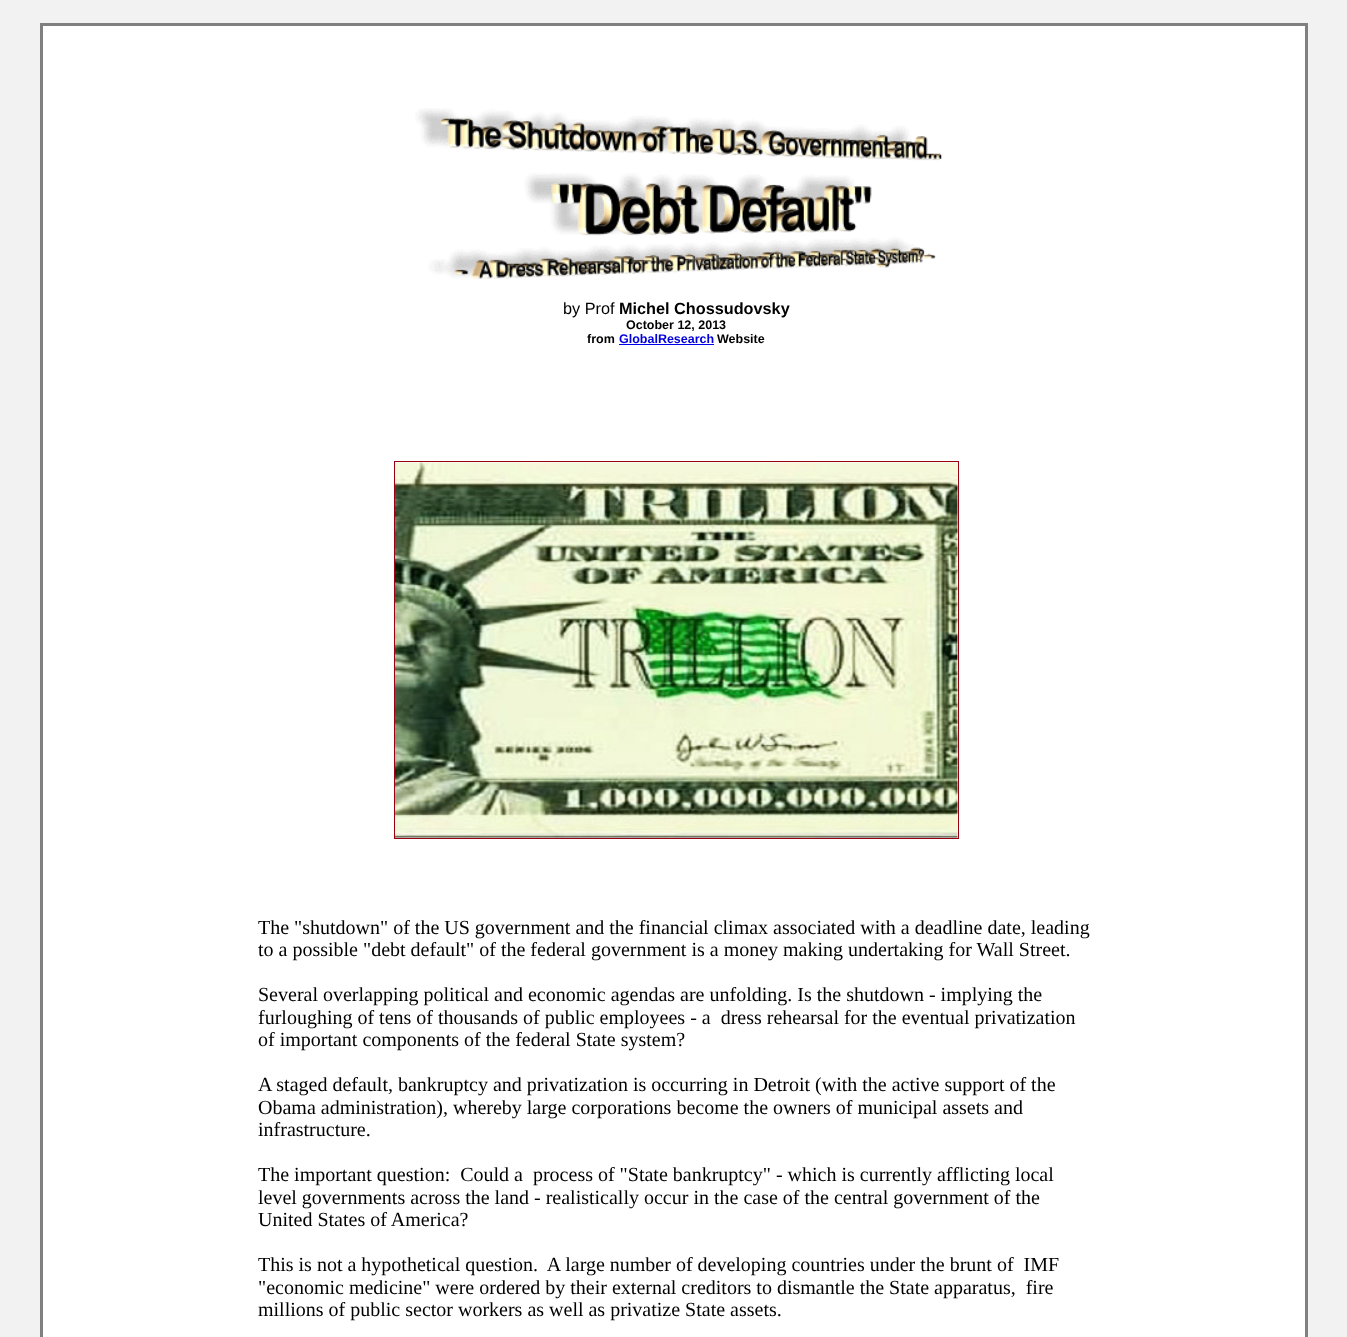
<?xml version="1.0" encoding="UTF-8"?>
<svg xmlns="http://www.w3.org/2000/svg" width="1347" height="1337">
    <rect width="100%" height="100%" fill="#F2F2F2"/>
    <rect x="43" y="26" width="1262" height="1311" fill="#FFFFFF"/>
    <rect x="40" y="23" width="1268" height="3" fill="#808080"/>
    <rect x="1305" y="23" width="3" height="1314" fill="#808080"/>
    <rect x="40" y="23" width="3" height="1314" fill="#808080"/>
    <image x="415" y="108" width="527" height="171" href="img_01.png"/>
    <text x="563" y="314" font-family="Liberation Sans" font-size="16.25" fill="#000000">by Prof</text>
    <text x="619" y="314" font-family="Liberation Sans" font-size="16.25" font-weight="700" fill="#000000">Michel Chossudovsky</text>
    <text x="626" y="329" font-family="Liberation Sans" font-size="12.5" font-weight="700" fill="#000000">October 12, 2013</text>
    <text x="587" y="343" font-family="Liberation Sans" font-size="12.5" font-weight="700" fill="#000000">from</text>
    <text x="619" y="343" font-family="Liberation Sans" font-size="12.5" font-weight="700" fill="#0000DD">GlobalResearch</text>
    <rect x="619" y="344" width="95" height="1" fill="#0000EE"/>
    <text x="717" y="343" font-family="Liberation Sans" font-size="12.5" font-weight="700" fill="#000000">Website</text>
    <rect x="394.5" y="461.5" width="564" height="377" fill="none" stroke="#990012"/>
    <image x="395" y="462" width="563" height="376" href="img_02.png"/>
    <text font-family="Liberation Serif" font-size="20" fill="#000000">
        <tspan x="258" y="934">The "shutdown" of the US government and the financial climax associated with a deadline date, leading</tspan>
        <tspan x="258" y="956">to a possible "debt default" of the federal government is a money making undertaking for Wall Street.</tspan>
    </text>
    <text font-family="Liberation Serif" font-size="20" fill="#000000" xml:space="preserve"><tspan x="258" y="1001">Several overlapping political and economic agendas are unfolding. Is the shutdown - implying the</tspan><tspan x="258" y="1024">furloughing of tens of thousands of public employees - a  dress rehearsal for the eventual privatization</tspan><tspan x="258" y="1046">of important components of the federal State system?</tspan></text>
    <text font-family="Liberation Serif" font-size="20" fill="#000000">
        <tspan x="258" y="1091">A staged default, bankruptcy and privatization is occurring in Detroit (with the active support of the</tspan>
        <tspan x="258" y="1114">Obama administration), whereby large corporations become the owners of municipal assets and</tspan>
        <tspan x="258" y="1136">infrastructure.</tspan>
    </text>
    <text font-family="Liberation Serif" font-size="20" fill="#000000" xml:space="preserve"><tspan x="258" y="1181">The important question:  Could a  process of "State bankruptcy" - which is currently afflicting local</tspan><tspan x="258" y="1204">level governments across the land - realistically occur in the case of the central government of the</tspan><tspan x="258" y="1226">United States of America?</tspan></text>
    <text font-family="Liberation Serif" font-size="20" fill="#000000" xml:space="preserve"><tspan x="258" y="1271">This is not a hypothetical question.  A large number of developing countries under the brunt of  IMF</tspan><tspan x="258" y="1294">"economic medicine" were ordered by their external creditors to dismantle the State apparatus,  fire</tspan><tspan x="258" y="1316">millions of public sector workers as well as privatize State assets.</tspan></text>
</svg>
